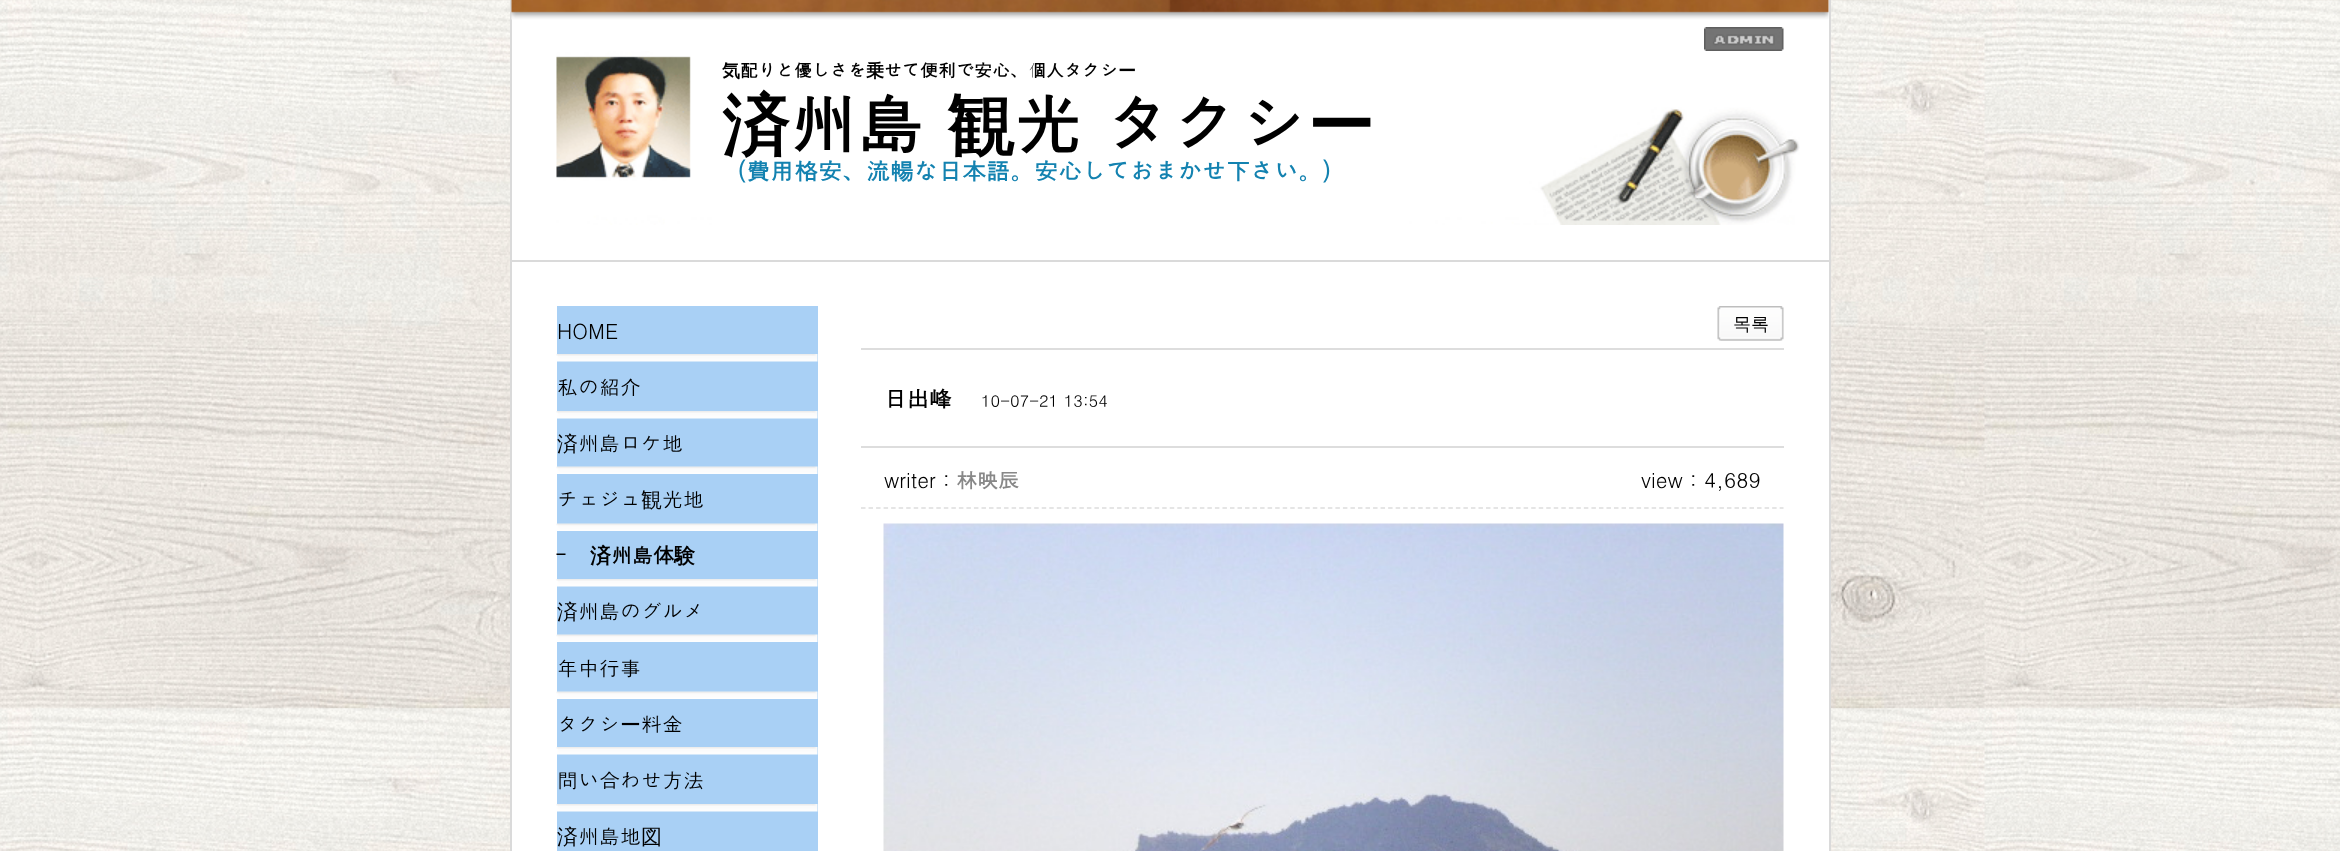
<?xml version="1.0" encoding="UTF-8"?>
<svg xmlns="http://www.w3.org/2000/svg" width="2340" height="851">
    <rect width="100%" height="100%" fill="#FFFFFF"/>
    <image x="0" y="0" width="2340" height="851" href="img_01.png"/>
    <rect x="512" y="0" width="1317" height="851" fill="#FFFFFF"/>
    <rect x="1829" y="0" width="2" height="851" fill="#DADADA"/>
    <rect x="510" y="0" width="2" height="851" fill="#DADADA"/>
    <image x="511" y="0" width="1318" height="20" href="img_02.png"/>
    <image x="1704" y="27" width="80" height="24" href="img_03.png"/>
    <image x="556" y="51" width="1244" height="174" href="img_04.png"/>
    <text x="722" y="77" font-family="WenQuanYi Zen Hei" font-size="18" font-weight="700" fill="#000000">気</text>
    <text x="740" y="77" font-family="Dotum" font-size="18" font-weight="700" fill="#000000">配りと優しさを</text>
    <text x="866" y="77" font-family="WenQuanYi Zen Hei" font-size="18" font-weight="700" fill="#000000">乗</text>
    <text x="884" y="77" font-family="Dotum" font-size="18" font-weight="700" fill="#000000">せて便利で安心、個人タクシ</text>
    <text x="1118" y="77" font-family="WenQuanYi Zen Hei" font-size="18" font-weight="700" fill="#000000">ー</text>
    <text x="722" y="149" font-family="WenQuanYi Zen Hei" font-size="67.5" font-weight="700" fill="#000000">済</text>
    <text x="789" y="149" font-family="Dotum" font-size="67.5" font-weight="700" fill="#000000">州島</text>
    <text x="947" y="149" font-family="WenQuanYi Zen Hei" font-size="67.5" font-weight="700" fill="#000000">観</text>
    <text x="1014" y="149" font-family="Dotum" font-size="67.5" font-weight="700" fill="#000000">光 タクシ</text>
    <text x="1307" y="149" font-family="WenQuanYi Zen Hei" font-size="67.5" font-weight="700" fill="#000000">ー</text>
    <text x="722" y="180" font-family="Dotum" font-size="24" font-weight="700" fill="#1382B0">（費用格安、流暢な日本語。安心しておまかせ下さい。)</text>
    <rect x="512" y="260" width="1317" height="2" fill="#DADADA"/>
    <rect x="557" y="306" width="261" height="545" fill="#A9D0F5"/>
    <image x="556" y="354" width="262" height="8" href="img_05.png"/>
    <text x="557" y="339" font-family="Dotum" font-size="21" fill="#000000">HOME</text>
    <image x="556" y="411" width="262" height="8" href="img_05.png"/>
    <text x="557" y="395" font-family="Dotum" font-size="21" fill="#000000">私の紹介</text>
    <image x="556" y="466" width="262" height="8" href="img_06.png"/>
    <text x="557" y="451" font-family="WenQuanYi Zen Hei" font-size="21" font-weight="500" fill="#000000">済</text>
    <text x="578" y="451" font-family="Dotum" font-size="21" fill="#000000">州島ロケ地</text>
    <image x="556" y="523" width="262" height="8" href="img_06.png"/>
    <text x="557" y="507" font-family="Dotum" font-size="21" fill="#000000">チェジュ</text>
    <text x="641" y="507" font-family="WenQuanYi Zen Hei" font-size="21" font-weight="500" fill="#000000">観</text>
    <text x="662" y="507" font-family="Dotum" font-size="21" fill="#000000">光地</text>
    <image x="556" y="579" width="262" height="8" href="img_05.png"/>
    <image x="556" y="553" width="10" height="2" href="img_07.png"/>
    <text x="590" y="563" font-family="WenQuanYi Zen Hei" font-size="21" font-weight="700" fill="#000000">済</text>
    <text x="611" y="563" font-family="Dotum" font-size="21" font-weight="700" fill="#000000">州島体</text>
    <text x="674" y="563" font-family="WenQuanYi Zen Hei" font-size="21" font-weight="700" fill="#000000">験</text>
    <image x="556" y="634" width="262" height="8" href="img_06.png"/>
    <text x="557" y="619" font-family="WenQuanYi Zen Hei" font-size="21" font-weight="500" fill="#000000">済</text>
    <text x="578" y="619" font-family="Dotum" font-size="21" fill="#000000">州島のグルメ</text>
    <image x="556" y="691" width="262" height="8" href="img_06.png"/>
    <text x="557" y="676" font-family="Dotum" font-size="21" fill="#000000">年中行事</text>
    <image x="556" y="747" width="262" height="8" href="img_05.png"/>
    <text x="557" y="732" font-family="Dotum" font-size="21" fill="#000000">タクシ</text>
    <text x="620" y="732" font-family="WenQuanYi Zen Hei" font-size="21" font-weight="500" fill="#000000">ー</text>
    <text x="641" y="732" font-family="Dotum" font-size="21" fill="#000000">料金</text>
    <image x="556" y="804" width="262" height="8" href="img_05.png"/>
    <text x="557" y="788" font-family="Dotum" font-size="21" fill="#000000">問い合わせ方法</text>
    <text x="557" y="844" font-family="WenQuanYi Zen Hei" font-size="21" font-weight="500" fill="#000000">済</text>
    <text x="578" y="844" font-family="Dotum" font-size="21" fill="#000000">州島地</text>
    <text x="641" y="844" font-family="WenQuanYi Zen Hei" font-size="21" font-weight="500" fill="#000000">図</text>
    <image x="1717" y="306" width="64" height="35" href="img_08.png"/>
    <image x="1720" y="306" width="64" height="35" href="img_09.png"/>
    <text x="1733" y="330" font-family="WenQuanYi Zen Hei" font-size="18" font-weight="500" fill="#000000">목록</text>
    <rect x="861" y="348" width="923" height="2" fill="#DDDDDD"/>
    <rect x="861" y="446" width="923" height="2" fill="#DDDDDD"/>
    <text x="884" y="407" font-family="Dotum" font-size="22.5" font-weight="700" fill="#000000">日出峰</text>
    <text x="981" y="407" font-family="Dotum" font-size="16.5" fill="#000000">10-07-21 13:54</text>
    <path d="M 861 508 H 1783.5" fill="none" stroke="#DDDDDD" stroke-width="1.5" stroke-dasharray="4.5 3.03"/>
    <text x="884" y="488" font-family="Dotum" font-size="21" fill="#000000">writer :</text>
    <text x="956" y="488" font-family="Dotum" font-size="21" font-weight="700" fill="#888888">林映辰</text>
    <text x="1641" y="488" font-family="Dotum" font-size="21" fill="#000000">view : 4,689</text>
    <image x="883" y="523" width="901" height="328" href="img_10.png"/>
</svg>
